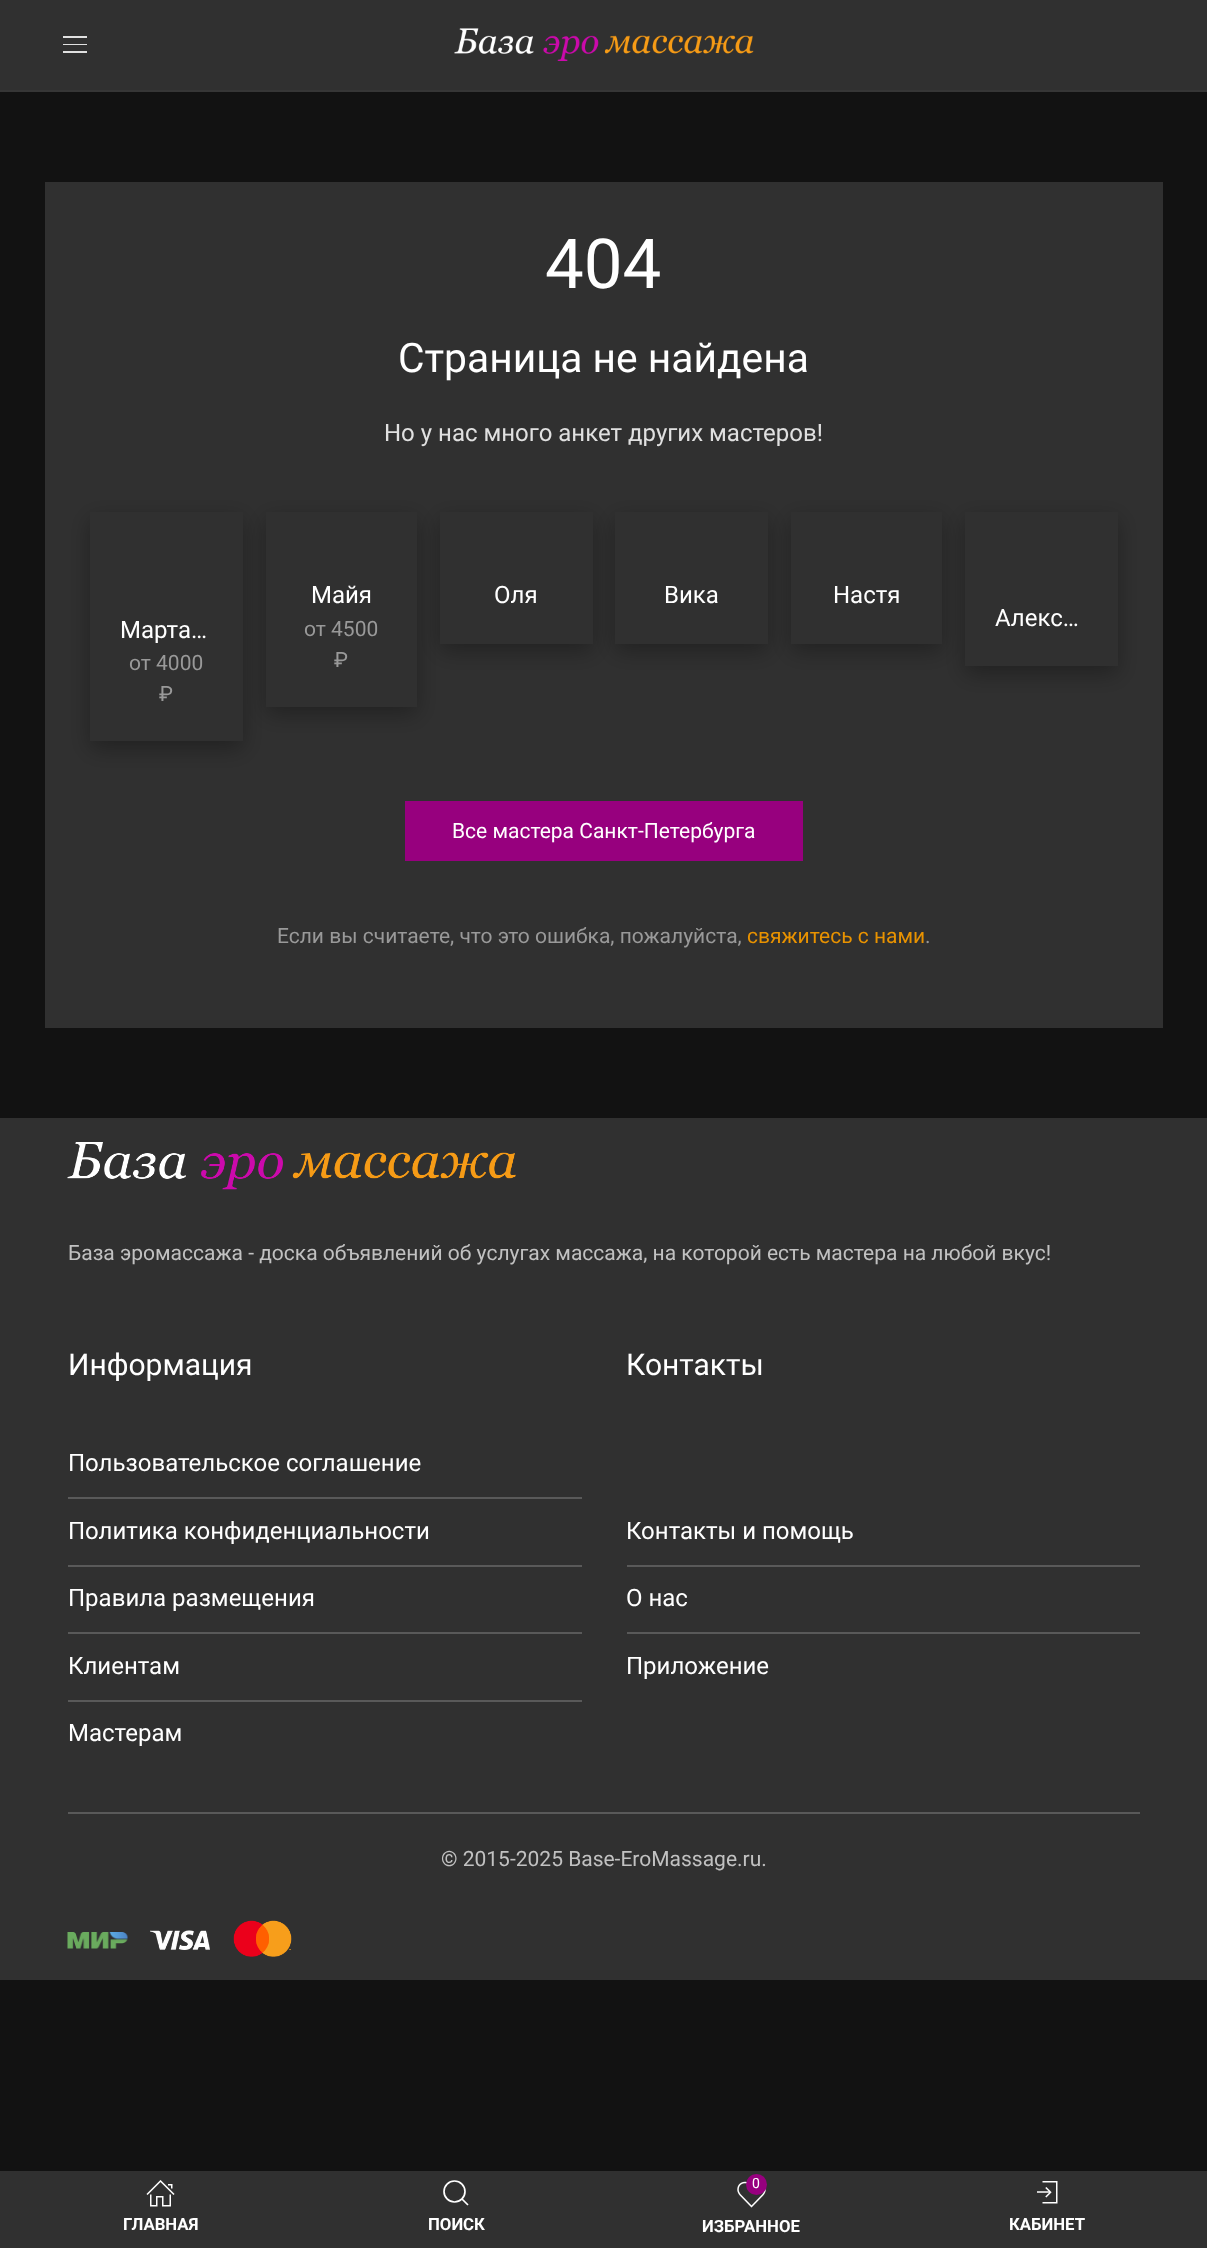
<?xml version="1.0" encoding="UTF-8"?>
<svg xmlns="http://www.w3.org/2000/svg" width="1207" height="2248">
    <defs>
        <filter id="blur1" x="-50%" y="-200%" width="200%" height="500%"><feGaussianBlur stdDeviation="11"/></filter>
        <clipPath id="clip1"><path d="M 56 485 H 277 V 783 H 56 Z M 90 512 H 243 V 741 H 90 Z" clip-rule="evenodd"/></clipPath>
    </defs>
    <rect width="100%" height="100%" fill="#121212"/>
    <rect x="0" y="0" width="1207" height="90" fill="#303030"/>
    <rect x="63" y="36" width="24" height="2" fill="#E0E0E0"/>
    <rect x="63" y="44" width="24" height="1" fill="#E0E0E0"/>
    <rect x="63" y="51" width="24" height="2" fill="#E0E0E0"/>
    <image x="454" y="28" width="300" height="33" href="img_01.png"/>
    <rect x="0" y="90" width="1207" height="2" fill="#363636"/>
    <rect x="45" y="182" width="1118" height="846" fill="#303030"/>
    <text x="545" y="288" font-family="Roboto" font-size="69" fill="#FFFFFF">404</text>
    <text x="398" y="372" font-family="Roboto" font-size="40.75" fill="#FFFFFF">Страница не найдена</text>
    <text x="384" y="441" font-family="Roboto" font-size="24" fill="#E0E0E0">Но у нас много анкет других мастеров!</text>
    <rect x="266" y="519" width="151" height="195" fill="#000000" fill-opacity="0.3" filter="url(#blur1)"/>
    <g clip-path="url(#clip1)">
        <rect x="90" y="519" width="153" height="230" fill="#000000" fill-opacity="0.3" filter="url(#blur1)"/>
    </g>
    <rect x="266" y="512" width="151" height="195" fill="#303030"/>
    <text x="311" y="603" font-family="Roboto" font-size="24" fill="#FFFFFF">Майя</text>
    <text x="304" y="636" font-family="Roboto" font-size="21" fill="#999999">от 4500</text>
    <text x="334" y="667" font-family="Roboto" font-size="21" fill="#999999">₽</text>
    <rect x="440" y="519" width="153" height="132" fill="#000000" fill-opacity="0.3" filter="url(#blur1)"/>
    <rect x="440" y="512" width="153" height="132" fill="#303030"/>
    <text x="494" y="603" font-family="Roboto" font-size="24" fill="#FFFFFF">Оля</text>
    <rect x="615" y="519" width="153" height="132" fill="#000000" fill-opacity="0.3" filter="url(#blur1)"/>
    <rect x="615" y="512" width="153" height="132" fill="#303030"/>
    <text x="664" y="603" font-family="Roboto" font-size="24" fill="#FFFFFF">Вика</text>
    <rect x="791" y="519" width="151" height="132" fill="#000000" fill-opacity="0.3" filter="url(#blur1)"/>
    <rect x="791" y="512" width="151" height="132" fill="#303030"/>
    <text x="833" y="603" font-family="Roboto" font-size="24" fill="#FFFFFF">Настя</text>
    <rect x="965" y="519" width="153" height="155" fill="#000000" fill-opacity="0.3" filter="url(#blur1)"/>
    <rect x="965" y="512" width="153" height="154" fill="#303030"/>
    <text x="995" y="626" font-family="Roboto" font-size="24" fill="#FFFFFF">Алекс…</text>
    <text x="120" y="638" font-family="Roboto" font-size="24" fill="#FFFFFF">Марта…</text>
    <text x="129" y="670" font-family="Roboto" font-size="21" fill="#999999">от 4000</text>
    <text x="159" y="701" font-family="Roboto" font-size="21" fill="#999999">₽</text>
    <rect x="405" y="801" width="398" height="60" fill="#97007E"/>
    <text x="452" y="838" font-family="Roboto" font-size="21" fill="#FFFFFF">Все мастера Санкт-Петербурга</text>
    <text x="277" y="943" font-family="Roboto" font-size="21" fill="#999999">Если вы считаете, что это ошибка, пожалуйста,</text>
    <text x="747" y="943" font-family="Roboto" font-size="21" fill="#E89200">свяжитесь с нами</text>
    <text x="925" y="943" font-family="Roboto" font-size="21" fill="#999999">.</text>
    <rect x="0" y="1118" width="1207" height="862" fill="#303030"/>
    <image x="67" y="1142" width="449" height="48" href="img_02.png"/>
    <text x="68" y="1260" font-family="Roboto" font-size="21" fill="#C1C1C1">База эромассажа - доска объявлений об услугах массажа, на которой есть мастера на любой вкус!</text>
    <text x="68" y="1375" font-family="Roboto" font-size="30" fill="#FFFFFF">Информация</text>
    <text x="68" y="1471" font-family="Roboto" font-size="24" fill="#FFFFFF">Пользовательское соглашение</text>
    <rect x="68" y="1497" width="514" height="2" fill="#595959"/>
    <text x="68" y="1539" font-family="Roboto" font-size="24" fill="#FFFFFF">Политика конфиденциальности</text>
    <rect x="68" y="1565" width="514" height="2" fill="#595959"/>
    <text x="68" y="1606" font-family="Roboto" font-size="24" fill="#FFFFFF">Правила размещения</text>
    <rect x="68" y="1632" width="514" height="2" fill="#595959"/>
    <text x="68" y="1674" font-family="Roboto" font-size="24" fill="#FFFFFF">Клиентам</text>
    <rect x="68" y="1700" width="514" height="2" fill="#595959"/>
    <text x="68" y="1741" font-family="Roboto" font-size="24" fill="#FFFFFF">Мастерам</text>
    <text x="626" y="1375" font-family="Roboto" font-size="30" fill="#FFFFFF">Контакты</text>
    <text x="626" y="1539" font-family="Roboto" font-size="24" fill="#FFFFFF">Контакты и помощь</text>
    <rect x="627" y="1565" width="513" height="2" fill="#595959"/>
    <text x="626" y="1606" font-family="Roboto" font-size="24" fill="#FFFFFF">О нас</text>
    <rect x="627" y="1632" width="513" height="2" fill="#595959"/>
    <text x="626" y="1674" font-family="Roboto" font-size="24" fill="#FFFFFF">Приложение</text>
    <rect x="68" y="1812" width="1072" height="2" fill="#595959"/>
    <text x="441" y="1866" font-family="Roboto" font-size="21" fill="#C1C1C1">© 2015-2025 Base-EroMassage.ru.</text>
    <image x="67" y="1932" width="61" height="17" href="img_03.png"/>
    <image x="150" y="1930" width="60" height="20" href="img_04.png"/>
    <image x="233" y="1920" width="59" height="37" href="img_05.png"/>
    <rect x="0" y="2171" width="1207" height="77" fill="#303030"/>
    <image x="146" y="2180" width="29" height="27" href="img_06.png"/>
    <text x="123" y="2230" font-family="Roboto" font-size="16.75" font-weight="700" fill="#FFFFFF">ГЛАВНАЯ</text>
    <circle cx="454.5" cy="2191.5" r="10.5" fill="none" stroke="#FFFFFF" stroke-width="1.7"/>
    <path d="M 462 2199 L 468 2205 Z" fill="none" stroke="#FFFFFF" stroke-width="1.7"/>
    <text x="428" y="2230" font-family="Roboto" font-size="16.75" font-weight="700" fill="#FFFFFF">ПОИСК</text>
    <image x="737" y="2181" width="29" height="27" href="img_07.png"/>
    <circle cx="756.5" cy="2184.5" r="10.5" fill="#97007E"/>
    <text x="752" y="2188" font-family="Roboto" font-size="14" fill="#FFFFFF">0</text>
    <text x="702" y="2232" font-family="Roboto" font-size="16.75" font-weight="700" fill="#FFFFFF">ИЗБРАННОЕ</text>
    <image x="1037" y="2181" width="21" height="23" href="img_08.png"/>
    <text x="1009" y="2230" font-family="Roboto" font-size="16.75" font-weight="700" fill="#FFFFFF">КАБИНЕТ</text>
</svg>
